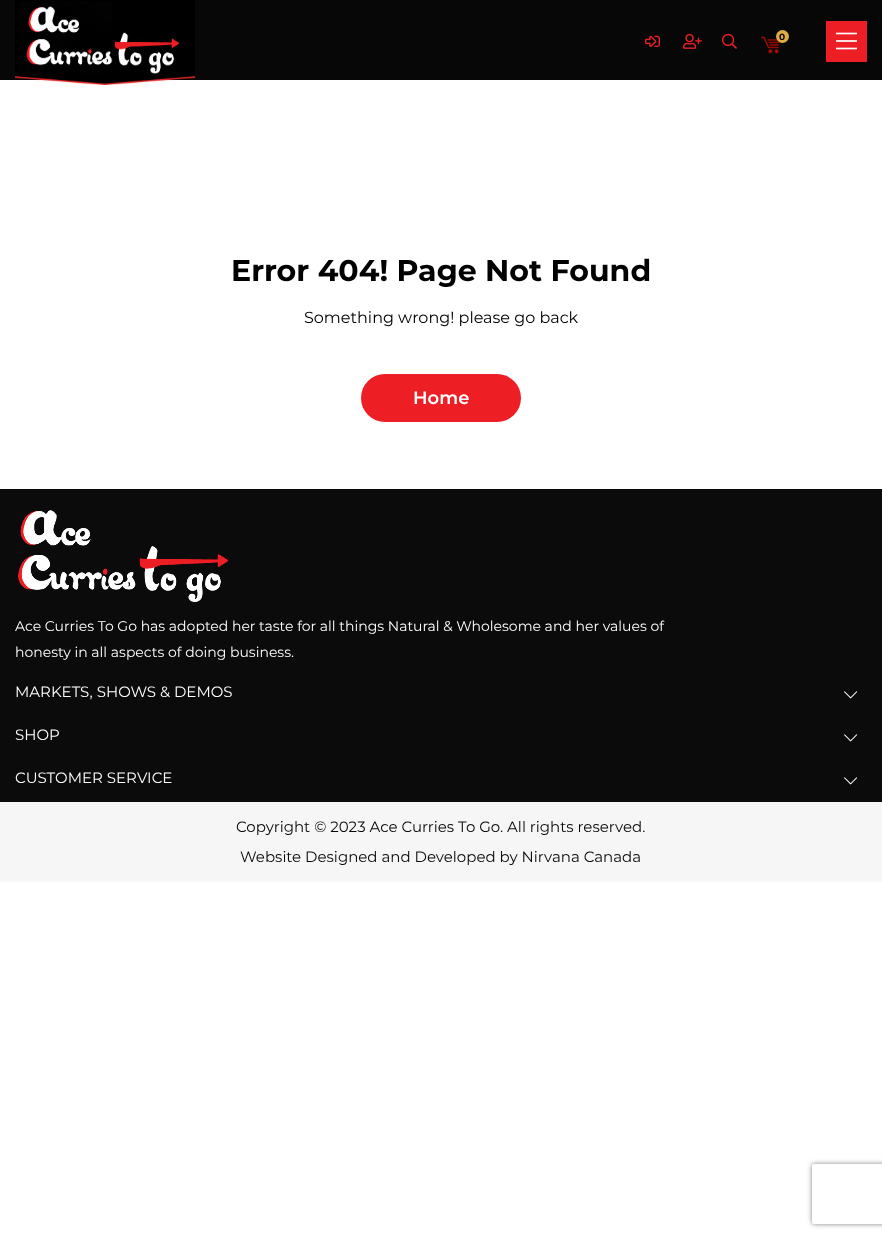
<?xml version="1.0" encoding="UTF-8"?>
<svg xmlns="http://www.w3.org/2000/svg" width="882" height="1238">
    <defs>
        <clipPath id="clip1"><path d="M 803 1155 H 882 V 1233 H 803 Z M 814 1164 H 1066 C 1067 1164 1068 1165 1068 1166 V 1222 C 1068 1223 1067 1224 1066 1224 H 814 C 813 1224 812 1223 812 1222 V 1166 C 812 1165 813 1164 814 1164 Z" clip-rule="evenodd"/></clipPath>
        <filter id="blur1" x="-50%" y="-200%" width="200%" height="500%"><feGaussianBlur stdDeviation="2.5"/></filter>
    </defs>
    <rect width="100%" height="100%" fill="#FFFFFF"/>
    <rect x="0" y="0" width="882" height="80" fill="#070707"/>
    <image x="15" y="0" width="180" height="85" href="img_01.png"/>
    <rect x="826" y="21" width="41" height="41" fill="#ED1F24"/>
    <image x="836" y="32" width="21" height="18" href="img_02.png"/>
    <image x="645" y="35" width="15" height="12" href="img_03.png"/>
    <image x="683" y="33" width="19" height="16" href="img_04.png"/>
    <image x="722" y="33" width="15" height="16" href="img_05.png"/>
    <image x="761" y="36" width="20" height="18" href="img_06.png"/>
    <circle cx="782.5" cy="36.5" r="6.5" fill="#DFAB46"/>
    <text x="779" y="40" font-family="Montserrat" font-size="9" font-weight="700" fill="#000000">0</text>
    <text x="231" y="281" font-family="Montserrat" font-size="30" font-weight="700" fill="#000000">Error 404! Page Not Found</text>
    <text x="304" y="323" font-family="Montserrat" font-size="16" fill="#000000">Something wrong! please go back</text>
    <rect x="361" y="374" width="160" height="48" rx="24" fill="#ED1F24"/>
    <text x="413" y="404" font-family="Montserrat" font-size="18" font-weight="600" fill="#FFFFFF">Home</text>
    <rect x="0" y="489" width="882" height="313" fill="#0B0B0B"/>
    <image x="18" y="510" width="210" height="92" href="img_07.png"/>
    <text font-family="Montserrat" font-size="14" fill="#FFFFFF">
        <tspan x="15" y="631">Ace Curries To Go has adopted her taste for all things Natural &amp; Wholesome and her values of</tspan>
        <tspan x="15" y="657">honesty in all aspects of doing business.</tspan>
    </text>
    <text x="15" y="697" font-family="Montserrat" font-size="15" fill="#FFFFFF">MARKETS, SHOWS &amp; DEMOS</text>
    <image x="844" y="691" width="14" height="8" href="img_08.png"/>
    <text x="15" y="740" font-family="Montserrat" font-size="15" fill="#FFFFFF">SHOP</text>
    <image x="844" y="734" width="14" height="8" href="img_08.png"/>
    <text x="15" y="783" font-family="Montserrat" font-size="15" fill="#FFFFFF">CUSTOMER SERVICE</text>
    <image x="844" y="777" width="14" height="8" href="img_08.png"/>
    <rect x="0" y="802" width="882" height="80" fill="#F6F6F6"/>
    <text x="236" y="832" font-family="Montserrat" font-size="15" fill="#080808">Copyright © 2023 Ace Curries To Go. All rights reserved.</text>
    <text x="240" y="862" font-family="Montserrat" font-size="15" fill="#080808">Website Designed and Developed by Nirvana Canada</text>
    <g clip-path="url(#clip1)">
        <rect x="812" y="1164" width="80" height="60" rx="2" fill="#808080" filter="url(#blur1)"/>
    </g>
</svg>
